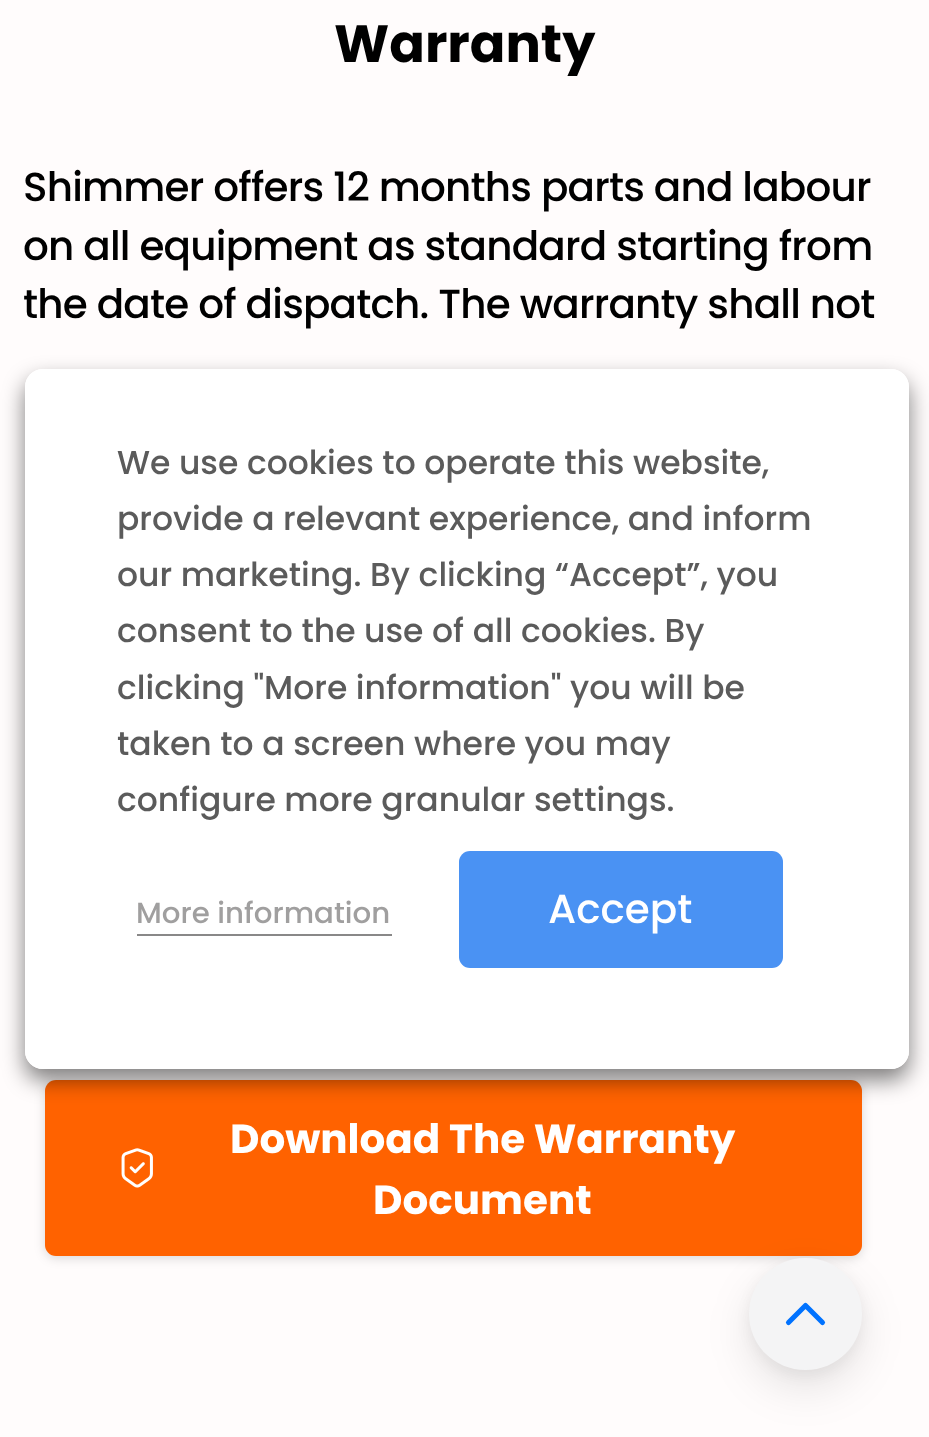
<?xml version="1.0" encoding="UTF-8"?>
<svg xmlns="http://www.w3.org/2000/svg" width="929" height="1437">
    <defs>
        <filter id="blur1" x="-50%" y="-200%" width="200%" height="500%"><feGaussianBlur stdDeviation="5.5"/></filter>
        <clipPath id="clip1"><path d="M 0 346 H 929 V 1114 H 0 Z M 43 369 H 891 C 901 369 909 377 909 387 V 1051 C 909 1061 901 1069 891 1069 H 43 C 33 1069 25 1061 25 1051 V 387 C 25 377 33 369 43 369 Z" clip-rule="evenodd"/></clipPath>
        <filter id="blur2" x="-50%" y="-200%" width="200%" height="500%"><feGaussianBlur stdDeviation="11"/></filter>
        <filter id="blur3" x="-50%" y="-200%" width="200%" height="500%"><feGaussianBlur stdDeviation="21.5"/></filter>
        <filter id="blur4" x="-50%" y="-200%" width="200%" height="500%"><feGaussianBlur stdDeviation="7"/></filter>
    </defs>
    <rect width="100%" height="100%" fill="#FFFCFC"/>
    <text x="334" y="62" font-family="Poppins" font-size="52.5" font-weight="700" fill="#000000">Warranty</text>
    <text font-family="Poppins" font-size="40.5" font-weight="500" letter-spacing="-0.8" fill="#000000">
        <tspan x="23" y="201">Shimmer offers 12 months parts and labour</tspan>
        <tspan x="23" y="260">on all equipment as standard starting from</tspan>
        <tspan x="23" y="318">the date of dispatch. The warranty shall not</tspan>
    </text>
    <rect x="45" y="1082" width="817" height="176" rx="11" fill="#000000" fill-opacity="0.15" filter="url(#blur1)"/>
    <rect x="45" y="1080" width="817" height="176" rx="11" fill="#FF6200"/>
    <image x="121" y="1148" width="32" height="40" href="img_01.png"/>
    <text x="230" y="1153" font-family="Poppins" font-size="40.5" font-weight="700" fill="#FFFFFF">Download The Warranty</text>
    <text x="373" y="1214" font-family="Poppins" font-size="40.5" font-weight="700" fill="#FFFFFF">Document</text>
    <g clip-path="url(#clip1)">
        <rect x="25" y="380" width="884" height="700" rx="18" fill="#000000" fill-opacity="0.5" filter="url(#blur2)"/>
    </g>
    <rect x="25" y="369" width="884" height="700" rx="18" fill="#FFFFFF"/>
    <text font-family="Poppins" font-size="33" font-weight="500" fill="#5B5B5B">
        <tspan x="117" y="474">We use cookies to operate this website,</tspan>
        <tspan x="117" y="530">provide a relevant experience, and inform</tspan>
        <tspan x="117" y="586">our marketing. By clicking “Accept”, you</tspan>
        <tspan x="117" y="642">consent to the use of all cookies. By</tspan>
        <tspan x="117" y="699">clicking "More information" you will be</tspan>
        <tspan x="117" y="755">taken to a screen where you may</tspan>
        <tspan x="117" y="811">configure more granular settings.</tspan>
    </text>
    <text x="136" y="923" font-family="Poppins" font-size="29.25" font-weight="500" fill="#A09F9F">More information</text>
    <rect x="137" y="934" width="255" height="2" fill="#898888"/>
    <rect x="459" y="851" width="324" height="117" rx="11" fill="#4A92F3"/>
    <text x="548" y="923" font-family="Poppins" font-size="40.5" font-weight="500" fill="#FFFFFF">Accept</text>
    <rect x="749" y="1276" width="113" height="112" rx="56" fill="#000000" fill-opacity="0.1" filter="url(#blur3)"/>
    <rect x="749" y="1262" width="113" height="113" rx="56.5" fill="#000000" fill-opacity="0.05" filter="url(#blur4)"/>
    <rect x="749" y="1258" width="113" height="112" rx="56" fill="#F4F4F5"/>
    <path d="M 788.5 1322.5 L 805.5 1305.5 L 822.5 1322.5" fill="none" stroke="#0072FF" stroke-width="5.1" stroke-linecap="round" stroke-linejoin="round"/>
</svg>
